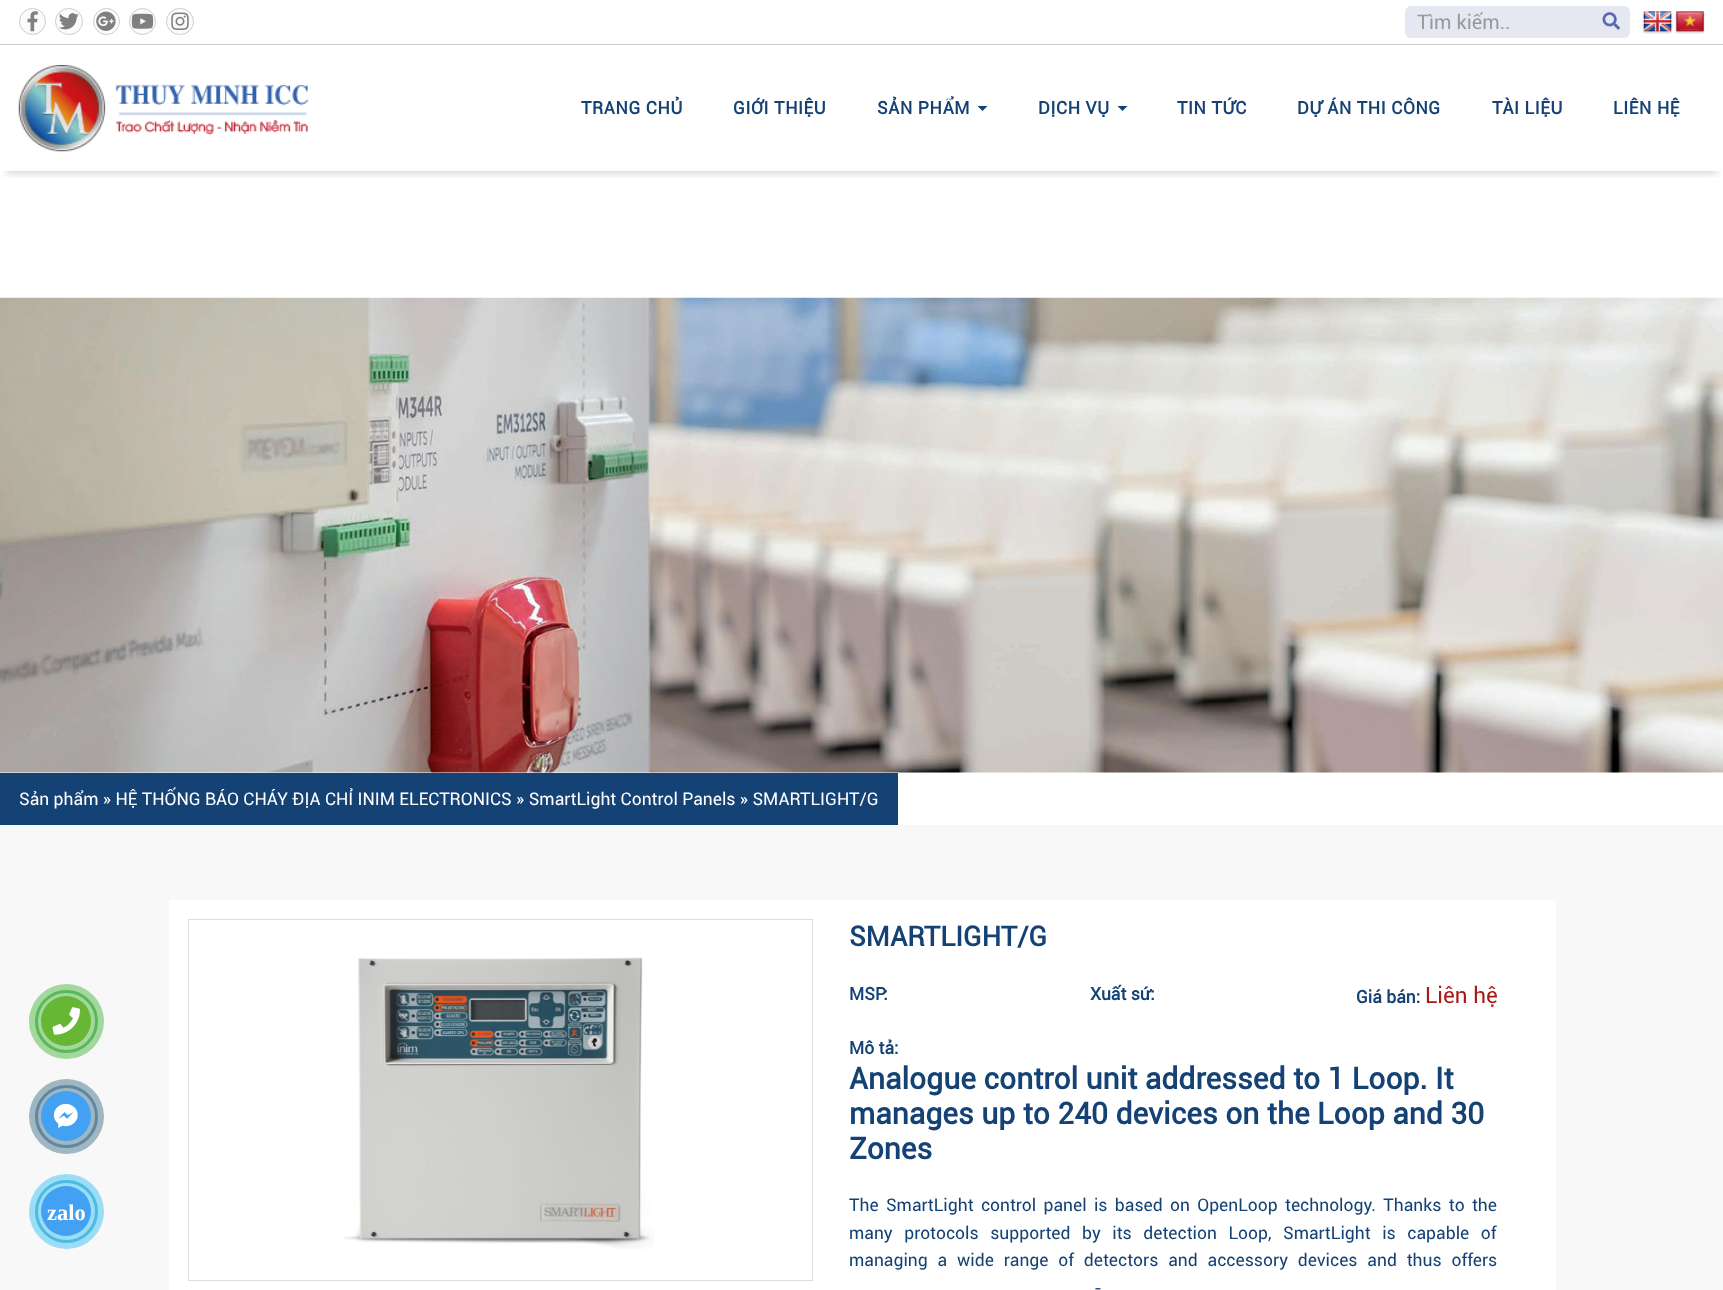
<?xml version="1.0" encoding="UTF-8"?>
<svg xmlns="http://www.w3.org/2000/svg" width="1723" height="1290">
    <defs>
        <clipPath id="clip1"><rect x="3" y="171" width="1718" height="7"/></clipPath>
        <filter id="blur1" x="-50%" y="-200%" width="200%" height="500%"><feGaussianBlur stdDeviation="4"/></filter>
    </defs>
    <rect width="100%" height="100%" fill="#FFFFFF"/>
    <rect x="0" y="44" width="1723" height="1" fill="#CCCCCC"/>
    <circle cx="32.5" cy="21.5" r="13" fill="#FAFBFC" stroke="#CCCCCC"/>
    <image x="27" y="11" width="11" height="21" href="img_01.png"/>
    <rect x="55.5" y="8.5" width="27" height="26" rx="13" fill="#FAFBFC" stroke="#CCCCCC"/>
    <image x="59" y="13" width="20" height="17" href="img_02.png"/>
    <circle cx="106.5" cy="21.5" r="13" fill="#FAFBFC" stroke="#CCCCCC"/>
    <image x="96" y="11" width="20" height="20" href="img_03.png"/>
    <circle cx="142.5" cy="21.5" r="13" fill="#FAFBFC" stroke="#CCCCCC"/>
    <image x="131" y="13" width="23" height="16" href="img_04.png"/>
    <rect x="166.5" y="8.5" width="27" height="26" rx="13" fill="#FAFBFC" stroke="#CCCCCC"/>
    <image x="171" y="12" width="18" height="18" href="img_05.png"/>
    <rect x="1405" y="6" width="225" height="32" rx="6" fill="#E5E7F3"/>
    <text x="1417" y="29" font-family="Roboto" font-size="20" fill="#999999">Tìm kiếm..</text>
    <image x="1602" y="12" width="18" height="18" href="img_06.png"/>
    <image x="1642" y="11" width="31" height="23" href="img_07.png"/>
    <image x="1675" y="11" width="30" height="23" href="img_08.png"/>
    <g clip-path="url(#clip1)">
        <rect x="6" y="59" width="1712" height="114" fill="#000000" fill-opacity="0.18" filter="url(#blur1)"/>
    </g>
    <image x="18" y="65" width="291" height="87" href="img_09.png"/>
    <text x="581" y="114" font-family="Roboto" font-size="17.5" font-weight="700" letter-spacing="0.6" fill="#154275">TRANG CHỦ</text>
    <text x="733" y="114" font-family="Roboto" font-size="17.5" font-weight="700" letter-spacing="0.6" fill="#154275">GIỚI THIỆU</text>
    <text x="877" y="114" font-family="Roboto" font-size="17.5" font-weight="700" letter-spacing="0.6" fill="#154275">SẢN PHẨM</text>
    <path d="M 977.5 106 H 987.5 L 982.5 111 Z" fill="#154275"/>
    <text x="1038" y="114" font-family="Roboto" font-size="17.5" font-weight="700" letter-spacing="0.6" fill="#154275">DỊCH VỤ</text>
    <path d="M 1117.5 106 H 1127.5 L 1122.5 111 Z" fill="#154275"/>
    <text x="1177" y="114" font-family="Roboto" font-size="17.5" font-weight="700" letter-spacing="0.6" fill="#154275">TIN TỨC</text>
    <text x="1297" y="114" font-family="Roboto" font-size="17.5" font-weight="700" letter-spacing="0.6" fill="#154275">DỰ ÁN THI CÔNG</text>
    <text x="1492" y="114" font-family="Roboto" font-size="17.5" font-weight="700" letter-spacing="0.6" fill="#154275">TÀI LIỆU</text>
    <text x="1613" y="114" font-family="Roboto" font-size="17.5" font-weight="700" letter-spacing="0.6" fill="#154275">LIÊN HỆ</text>
    <image x="0" y="297" width="1723" height="476" href="img_10.png"/>
    <rect x="0" y="773" width="898" height="52" fill="#154275"/>
    <text x="19" y="805" font-family="Roboto" font-size="17.5" fill="#FFFFFF">Sản phẩm » HỆ THỐNG BÁO CHÁY ĐỊA CHỈ INIM ELECTRONICS » SmartLight Control Panels » SMARTLIGHT/G</text>
    <rect x="0" y="825" width="1723" height="465" fill="#F8F8F8"/>
    <rect x="169" y="900" width="1387" height="390" fill="#FFFFFF"/>
    <rect x="188.5" y="919.5" width="624" height="361" fill="none" stroke="#DDDDDD"/>
    <image x="343" y="957" width="311" height="292" href="img_11.png"/>
    <text x="849" y="946" font-family="Roboto" font-size="27.5" font-weight="700" fill="#154275">SMARTLIGHT/G</text>
    <text x="849" y="1000" font-family="Roboto" font-size="17.5" font-weight="700" fill="#154275">MSP:</text>
    <text x="1090" y="1000" font-family="Roboto" font-size="17.5" font-weight="700" fill="#154275">Xuất sứ:</text>
    <text x="1356" y="1003" font-family="Roboto" font-size="17.5" font-weight="700" fill="#154275">Giá bán:</text>
    <text x="1425" y="1003" font-family="Roboto" font-size="22.5" fill="#A81917">Liên hệ</text>
    <text x="849" y="1054" font-family="Roboto" font-size="17.5" font-weight="700" fill="#154275">Mô tả:</text>
    <text font-family="Roboto" font-size="30" font-weight="700" fill="#154275">
        <tspan x="849" y="1089">Analogue control unit addressed to 1 Loop. It</tspan>
        <tspan x="849" y="1124">manages up to 240 devices on the Loop and 30</tspan>
        <tspan x="849" y="1159">Zones</tspan>
    </text>
    <text font-family="Roboto" font-size="17.5" fill="#154275">
        <tspan x="849" y="1211" word-spacing="3">The SmartLight control panel is based on OpenLoop technology. Thanks to the</tspan>
        <tspan x="849" y="1239" word-spacing="7.25">many protocols supported by its detection Loop, SmartLight is capable of</tspan>
        <tspan x="849" y="1266" word-spacing="5.5">managing a wide range of detectors and accessory devices and thus offers</tspan>
    </text>
    <text x="1094" y="1294" font-family="Roboto" font-size="17.5" fill="#154275">-</text>
    <circle cx="66.5" cy="1021.5" r="30" fill="none" stroke="#84C687" stroke-width="3"/>
    <circle cx="66.5" cy="1021.5" r="37.5" fill="#14A40B" fill-opacity="0.38"/>
    <circle cx="66" cy="1021" r="25" fill="#67B634"/>
    <image x="52" y="1007" width="28" height="28" href="img_12.png"/>
    <circle cx="66.5" cy="1116.5" r="30" fill="none" stroke="#97A8C9" stroke-width="3"/>
    <circle cx="66.5" cy="1116.5" r="37.5" fill="#0B4B63" fill-opacity="0.38"/>
    <circle cx="66" cy="1116" r="25" fill="#43A1F3"/>
    <image x="53" y="1103" width="25" height="25" href="img_13.png"/>
    <circle cx="66.5" cy="1211.5" r="30" fill="none" stroke="#7CC1D9" stroke-width="3"/>
    <circle cx="66.5" cy="1211.5" r="37.5" fill="#00AFF2" fill-opacity="0.38"/>
    <circle cx="66" cy="1211" r="25" fill="#43A1F3"/>
    <text x="47" y="1220" font-family="Liberation Serif" font-size="22.5" font-weight="700" fill="#FFFFFF">zalo</text>
</svg>
